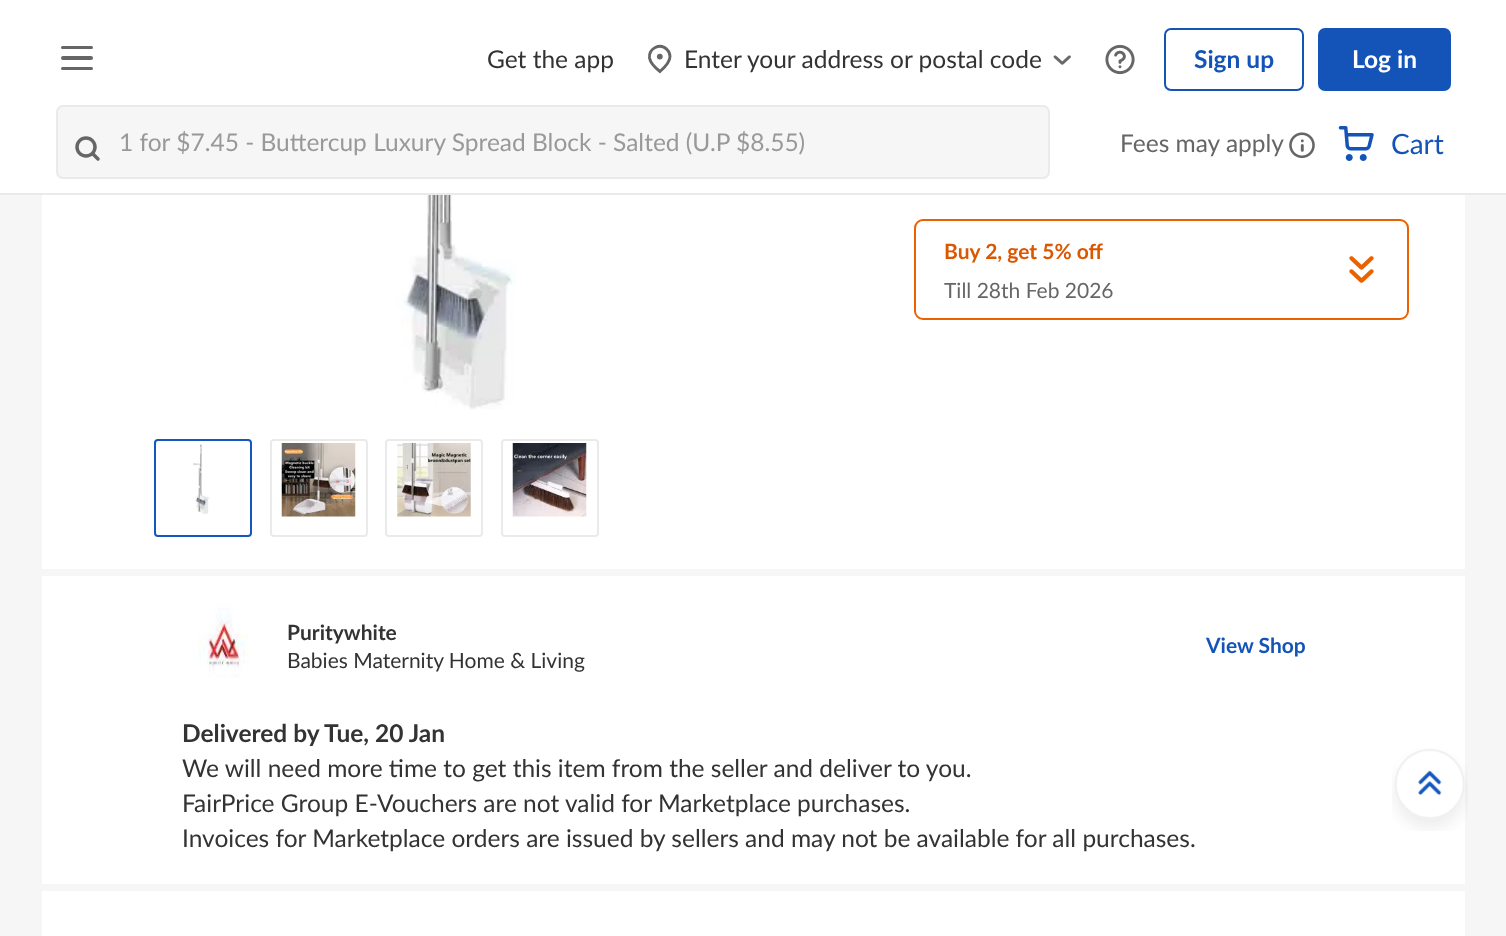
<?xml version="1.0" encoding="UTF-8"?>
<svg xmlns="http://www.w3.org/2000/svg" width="1506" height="936">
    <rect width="100%" height="100%" fill="#F6F6F6"/>
    <rect x="0" y="0" width="1506" height="193" fill="#FFFFFF"/>
    <rect x="0" y="193" width="1506" height="2" fill="#EAEAEA"/>
    <rect x="61" y="46" width="32" height="3" rx="1.5" fill="#666666"/>
    <rect x="61" y="56" width="32" height="4" rx="2" fill="#666666"/>
    <rect x="61" y="67" width="32" height="3" rx="1.5" fill="#666666"/>
    <text x="487" y="68" font-family="Lato" font-size="24.5" fill="#333333">Get the app</text>
    <path d="M 660 71.5 C 664 68 670 62.5 670 56.5 C 670 54 669 51.5 667 49.5 C 660 42.5 648.5 48.5 649.5 58 C 650.5 63.5 655.5 68 660 71.5 Z" fill="none" stroke="#666666" stroke-width="2.9"/>
    <circle cx="659.8" cy="56.6" r="2.9" fill="#666666"/>
    <text x="684" y="68" font-family="Lato" font-size="24.5" fill="#333333">Enter your address or postal code</text>
    <image x="1053" y="55" width="18" height="10" href="img_01.png"/>
    <image x="1105" y="44" width="30" height="31" href="img_02.png"/>
    <rect x="1165" y="29" width="138" height="61" rx="6" fill="none" stroke="#1454B8" stroke-width="2"/>
    <text x="1194" y="68" font-family="Lato" font-size="24.5" font-weight="700" fill="#1454B8">Sign up</text>
    <rect x="1318" y="28" width="133" height="63" rx="7" fill="#1454B8"/>
    <text x="1352" y="68" font-family="Lato" font-size="24.5" font-weight="700" fill="#FFFFFF">Log in</text>
    <rect x="57" y="106" width="992" height="72" rx="6" fill="#F6F6F6" stroke="#EAEAEA" stroke-width="2"/>
    <circle cx="86" cy="147" r="9" fill="none" stroke="#666666" stroke-width="3.5"/>
    <path d="M 98 159 L 93 154" fill="none" stroke="#666666" stroke-width="3.5" stroke-linecap="round" stroke-linejoin="round"/>
    <text x="119" y="151" font-family="Lato" font-size="24.5" fill="#999999">1 for $7.45 - Buttercup Luxury Spread Block - Salted (U.P $8.55)</text>
    <text x="1120" y="152" font-family="Lato" font-size="24.5" fill="#666666">Fees may apply</text>
    <image x="1289" y="132" width="26" height="27" href="img_03.png"/>
    <image x="1338" y="126" width="36" height="35" href="img_04.png"/>
    <text x="1391" y="154" font-family="Lato" font-size="28" fill="#1454B8">Cart</text>
    <rect x="42" y="195" width="1423" height="374" fill="#FFFFFF"/>
    <image x="379" y="195" width="137" height="215" href="img_05.png"/>
    <rect x="155" y="440" width="96" height="96" rx="3" fill="none" stroke="#1557BF" stroke-width="2"/>
    <image x="193" y="444" width="17" height="70" href="img_06.png"/>
    <rect x="271" y="440" width="96" height="96" rx="3" fill="none" stroke="#EAEAEA" stroke-width="2"/>
    <image x="281" y="443" width="75" height="74" href="img_07.png"/>
    <rect x="386" y="440" width="96" height="96" rx="3" fill="none" stroke="#EAEAEA" stroke-width="2"/>
    <image x="397" y="443" width="74" height="74" href="img_08.png"/>
    <rect x="502" y="440" width="96" height="96" rx="3" fill="none" stroke="#EAEAEA" stroke-width="2"/>
    <image x="512" y="443" width="75" height="74" href="img_09.png"/>
    <rect x="915" y="220" width="493" height="99" rx="8" fill="none" stroke="#EA6100" stroke-width="2"/>
    <text x="944" y="259" font-family="Lato" font-size="21" font-weight="700" fill="#DB5800">Buy 2, get 5% off</text>
    <text x="944" y="298" font-family="Lato" font-size="21" fill="#666666">Till 28th Feb 2026</text>
    <image x="1349" y="256" width="25" height="27" href="img_10.png"/>
    <rect x="42" y="576" width="1423" height="308" fill="#FFFFFF"/>
    <image x="198" y="604" width="52" height="74" href="img_11.png"/>
    <text x="287" y="640" font-family="Lato" font-size="21" font-weight="700" fill="#333333">Puritywhite</text>
    <text x="287" y="668" font-family="Lato" font-size="21" fill="#333333">Babies Maternity Home &amp; Living</text>
    <text x="1206" y="653" font-family="Lato" font-size="21" font-weight="700" fill="#1454B8">View Shop</text>
    <text x="182" y="742" font-family="Lato" font-size="24.5" font-weight="700" fill="#333333">Delivered by</text>
    <text x="324" y="742" font-family="Lato" font-size="24.5" font-weight="700" fill="#333333">Tue, 20 Jan</text>
    <text font-family="Lato" font-size="24.5" fill="#333333">
        <tspan x="182" y="777">We will need more time to get this item from the seller and deliver to you.</tspan>
        <tspan x="182" y="812">FairPrice Group E-Vouchers are not valid for Marketplace purchases.</tspan>
        <tspan x="182" y="847">Invoices for Marketplace orders are issued by sellers and may not be available for all purchases.</tspan>
    </text>
    <rect x="42" y="891" width="1423" height="45" fill="#FFFFFF"/>
    <image x="1392" y="748" width="76" height="83" href="img_12.png"/>
</svg>
